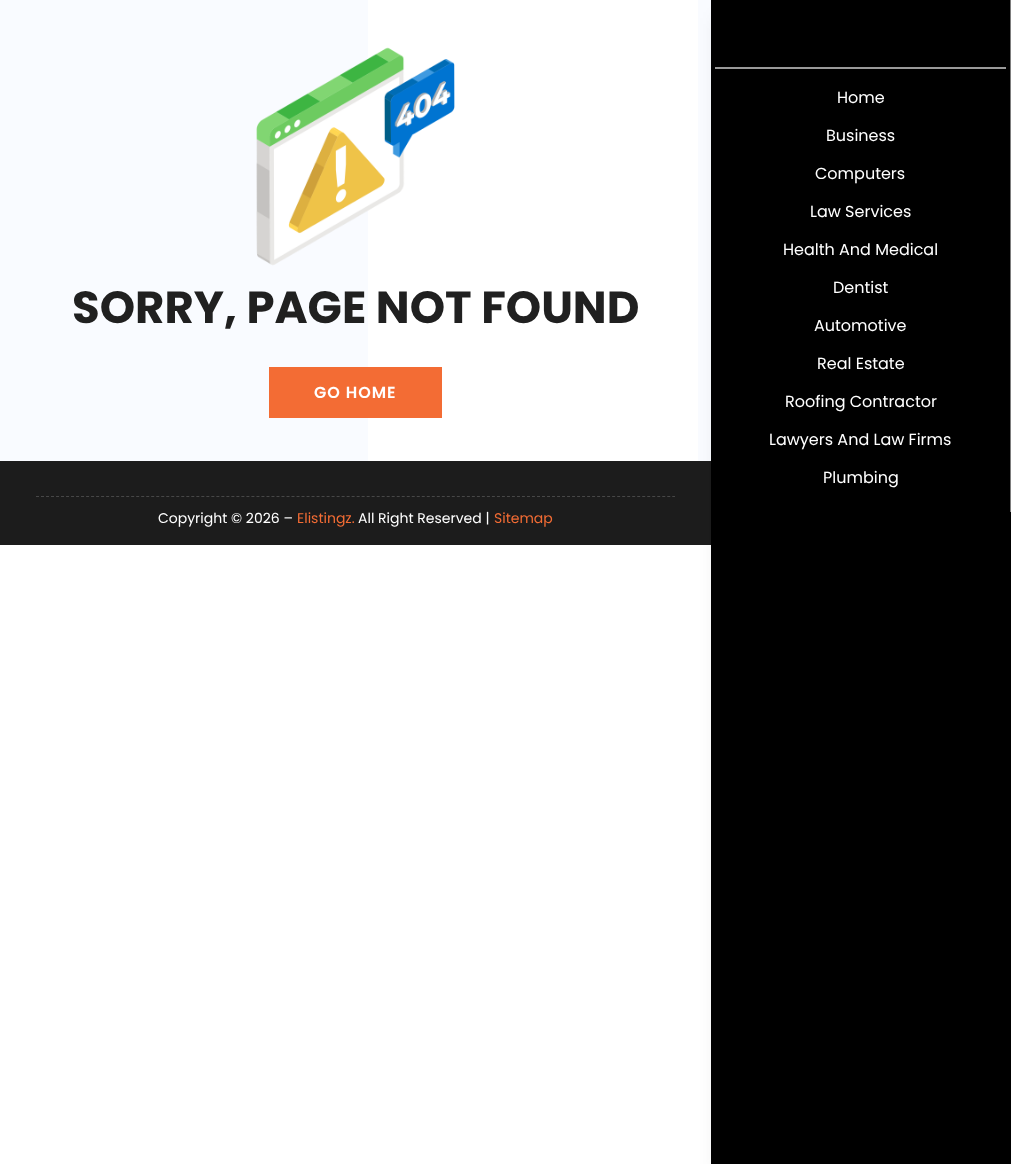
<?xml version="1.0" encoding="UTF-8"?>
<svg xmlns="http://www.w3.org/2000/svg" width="1011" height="1164">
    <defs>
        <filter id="blur1" x="-50%" y="-200%" width="200%" height="500%"><feGaussianBlur stdDeviation="9"/></filter>
    </defs>
    <rect width="100%" height="100%" fill="#FFFFFF"/>
    <path d="M 343 -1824 C 343 -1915 269 -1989 178 -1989 C 87 -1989 13 -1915 13 -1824 V -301 C 13 -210 87 -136 178 -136 C 269 -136 343 -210 343 -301 Z M 698 461 V -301 C 698 -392 624 -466 533 -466 C 442 -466 368 -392 368 -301 V 461 H 0 V -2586 H 368 V -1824 C 368 -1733 442 -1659 533 -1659 C 624 -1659 698 -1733 698 -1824 V -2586 H 711 V 461 Z" fill="#F9FBFF"/>
    <image x="256" y="47" width="199" height="219" href="img_01.png"/>
    <text x="72" y="323" font-family="Poppins" font-size="45" font-weight="700" fill="#202020">SORRY, PAGE NOT FOUND</text>
    <rect x="269" y="367" width="173" height="51" fill="#F36C34"/>
    <text x="314" y="398" font-family="Poppins" font-size="16" font-weight="600" letter-spacing="1" fill="#FFFFFF">GO HOME</text>
    <rect x="0" y="461" width="711" height="84" fill="#1C1C1C"/>
    <path d="M 36 496.5 H 675" fill="none" stroke="#474747" stroke-dasharray="3 2.01"/>
    <text x="158" y="523" font-family="Poppins" font-size="14" fill="#FFFFFF">Copyright © 2026 –</text>
    <text x="297" y="523" font-family="Poppins" font-size="14" fill="#F36C34">Elistingz.</text>
    <text x="358" y="523" font-family="Poppins" font-size="14" fill="#FFFFFF">All Right Reserved |</text>
    <text x="494" y="523" font-family="Poppins" font-size="14" fill="#F36C34">Sitemap</text>
    <rect x="717" y="18" width="288" height="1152" fill="#000000" fill-opacity="0.1" filter="url(#blur1)"/>
    <rect x="711" y="0" width="300" height="1164" fill="#000000"/>
    <rect x="1010" y="0" width="1" height="512" fill="#7D7D7D"/>
    <rect x="715" y="67" width="291" height="2" fill="#999999"/>
    <text x="837" y="103" font-family="Poppins" font-size="16" fill="#FFFFFF">Home</text>
    <text x="826" y="141" font-family="Poppins" font-size="16" fill="#FFFFFF">Business</text>
    <text x="815" y="179" font-family="Poppins" font-size="16" fill="#FFFFFF">Computers</text>
    <text x="810" y="217" font-family="Poppins" font-size="16" fill="#FFFFFF">Law Services</text>
    <text x="783" y="255" font-family="Poppins" font-size="16" fill="#FFFFFF">Health And Medical</text>
    <text x="833" y="293" font-family="Poppins" font-size="16" fill="#FFFFFF">Dentist</text>
    <text x="814" y="331" font-family="Poppins" font-size="16" fill="#FFFFFF">Automotive</text>
    <text x="817" y="369" font-family="Poppins" font-size="16" fill="#FFFFFF">Real Estate</text>
    <text x="785" y="407" font-family="Poppins" font-size="16" fill="#FFFFFF">Roofing Contractor</text>
    <text x="769" y="445" font-family="Poppins" font-size="16" fill="#FFFFFF">Lawyers And Law Firms</text>
    <text x="823" y="483" font-family="Poppins" font-size="16" fill="#FFFFFF">Plumbing</text>
</svg>
